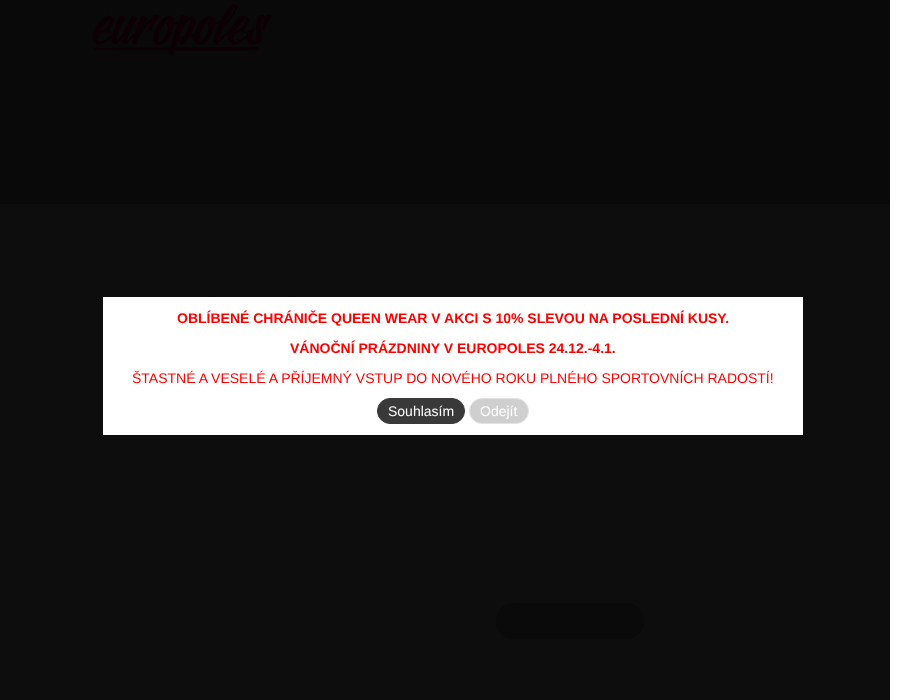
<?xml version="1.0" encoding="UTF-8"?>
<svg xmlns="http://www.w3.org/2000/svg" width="905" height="700">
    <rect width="100%" height="100%" fill="#FFFFFF"/>
    <rect x="0" y="204" width="890" height="496" fill="#0D0D0D"/>
    <rect x="0" y="0" width="890" height="204" fill="#090909"/>
    <image x="92" y="4" width="180" height="52" href="img_01.png"/>
    <rect x="496" y="603" width="148" height="36" rx="18" fill="#0A0A0A"/>
    <rect x="103" y="297" width="700" height="138" fill="#FFFFFF"/>
    <text x="177" y="323" font-family="Liberation Sans" font-size="14" font-weight="700" fill="#FF0000">OBLÍBENÉ CHRÁNIČE QUEEN WEAR V AKCI S 10% SLEVOU NA POSLEDNÍ KUSY.</text>
    <text x="290" y="353" font-family="Liberation Sans" font-size="14" font-weight="700" fill="#FF0000">VÁNOČNÍ PRÁZDNINY V EUROPOLES 24.12.-4.1.</text>
    <text x="132" y="383" font-family="Liberation Sans" font-size="14" fill="#FF0000">ŠTASTNÉ A VESELÉ A PŘÍJEMNÝ VSTUP DO NOVÉHO ROKU PLNÉHO SPORTOVNÍCH RADOSTÍ!</text>
    <rect x="377.5" y="398.5" width="87" height="25" rx="12.5" fill="#393939" stroke="#393939"/>
    <text x="388" y="416" font-family="Liberation Sans" font-size="14" fill="#FFFFFF">Souhlasím</text>
    <rect x="469.5" y="398.5" width="59" height="25" rx="12.5" fill="#CFCFCF" stroke="#E3E3E3"/>
    <text x="480" y="416" font-family="Liberation Sans" font-size="14" fill="#FFFFFF">Odejít</text>
</svg>
